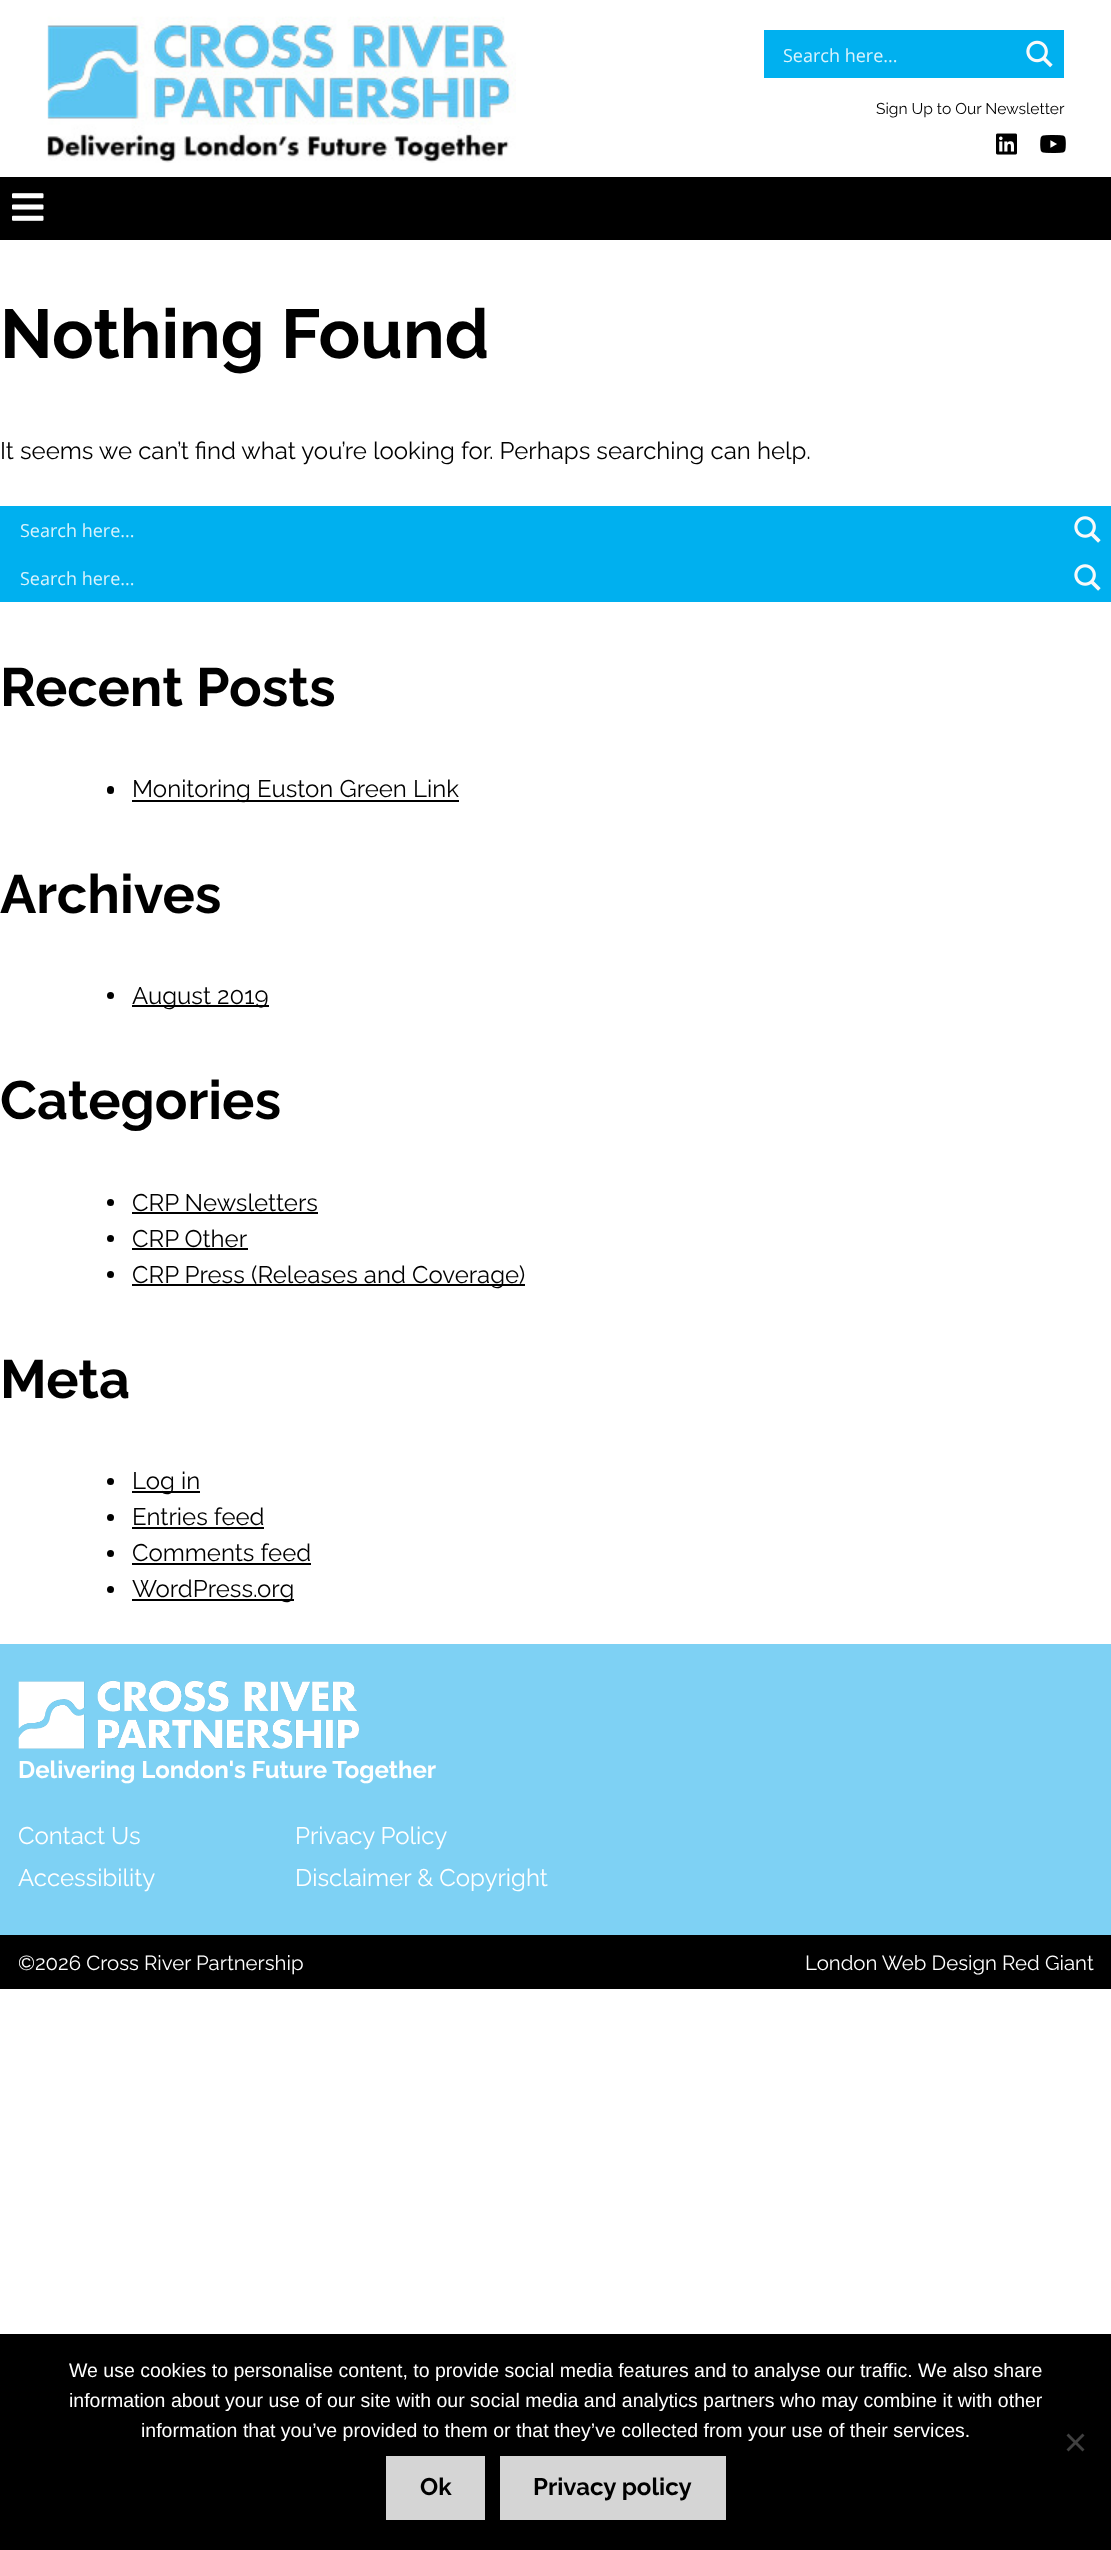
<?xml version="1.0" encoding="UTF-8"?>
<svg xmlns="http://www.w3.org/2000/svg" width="1111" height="2550">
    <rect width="100%" height="100%" fill="#FFFFFF"/>
    <image x="47" y="16" width="469" height="147" href="img_01.png"/>
    <rect x="764" y="30" width="300" height="48" fill="#00B0EF"/>
    <text x="783" y="62" font-family="Open Sans" font-size="18" fill="#D9F3FD">Search here...</text>
    <image x="1026" y="40" width="27" height="28" href="img_02.png"/>
    <text x="876" y="114" font-family="Raleway" font-size="15.6" font-weight="100" fill="#000000">Sign Up to Our Newsletter</text>
    <image x="996" y="133" width="21" height="22" href="img_03.png"/>
    <image x="1040" y="135" width="26" height="18" href="img_04.png"/>
    <rect x="0" y="177" width="1111" height="63" fill="#000000"/>
    <image x="12" y="193" width="32" height="28" href="img_05.png"/>
    <text x="0" y="358" font-family="Raleway" font-size="69" font-weight="700" fill="#000000">Nothing Found</text>
    <text x="0" y="459" font-family="Raleway" font-size="24" font-weight="100" fill="#000000">It seems we can’t find what you’re looking for. Perhaps searching can help.</text>
    <rect x="0" y="506" width="1111" height="96" fill="#00B0EF"/>
    <text x="20" y="537" font-family="Open Sans" font-size="18" fill="#D9F3FD">Search here...</text>
    <image x="1074" y="516" width="27" height="27" href="img_06.png"/>
    <text x="20" y="585" font-family="Open Sans" font-size="18" fill="#D9F3FD">Search here...</text>
    <image x="1074" y="564" width="27" height="27" href="img_06.png"/>
    <text x="0" y="706" font-family="Raleway" font-size="54" font-weight="700" fill="#000000">Recent Posts</text>
    <rect x="107" y="786" width="7" height="8" rx="3.5" fill="#000000"/>
    <rect x="132" y="800" width="327" height="2" fill="#000000"/>
    <text x="132" y="797" font-family="Raleway" font-size="24" font-weight="100" fill="#000000">Monitoring Euston Green Link</text>
    <text x="0" y="913" font-family="Raleway" font-size="54" font-weight="700" fill="#000000">Archives</text>
    <circle cx="110.5" cy="995.5" r="3.5" fill="#000000"/>
    <rect x="132" y="1005" width="137" height="2" fill="#000000"/>
    <text x="132" y="1004" font-family="Raleway" font-size="24" font-weight="100" fill="#000000">August 2019</text>
    <text x="0" y="1119" font-family="Raleway" font-size="54" font-weight="700" fill="#000000">Categories</text>
    <circle cx="110.5" cy="1202.5" r="3.5" fill="#000000"/>
    <text x="132" y="1211" font-family="Raleway" font-size="24" font-weight="100" fill="#000000">CRP Newsletters</text>
    <rect x="132" y="1212" width="186" height="2" fill="#000000"/>
    <circle cx="110.5" cy="1238.5" r="3.5" fill="#000000"/>
    <text x="132" y="1247" font-family="Raleway" font-size="24" font-weight="100" fill="#000000">CRP Other</text>
    <rect x="132" y="1248" width="116" height="2" fill="#000000"/>
    <circle cx="110.5" cy="1274.5" r="3.5" fill="#000000"/>
    <rect x="132" y="1284" width="393" height="2" fill="#000000"/>
    <text x="132" y="1283" font-family="Raleway" font-size="24" font-weight="100" fill="#000000">CRP Press (Releases and Coverage)</text>
    <text x="0" y="1398" font-family="Raleway" font-size="54" font-weight="700" fill="#000000">Meta</text>
    <circle cx="110.5" cy="1481.5" r="3.5" fill="#000000"/>
    <rect x="132" y="1491" width="68" height="2" fill="#000000"/>
    <text x="132" y="1489" font-family="Raleway" font-size="24" font-weight="100" fill="#000000">Log in</text>
    <circle cx="110.5" cy="1517.5" r="3.5" fill="#000000"/>
    <text x="132" y="1525" font-family="Raleway" font-size="24" font-weight="100" fill="#000000">Entries feed</text>
    <rect x="132" y="1527" width="132" height="2" fill="#000000"/>
    <circle cx="110.5" cy="1553.5" r="3.5" fill="#000000"/>
    <text x="132" y="1561" font-family="Raleway" font-size="24" font-weight="100" fill="#000000">Comments feed</text>
    <rect x="132" y="1563" width="179" height="2" fill="#000000"/>
    <circle cx="110.5" cy="1589.5" r="3.5" fill="#000000"/>
    <rect x="132" y="1599" width="162" height="2" fill="#000000"/>
    <text x="132" y="1597" font-family="Raleway" font-size="24" font-weight="100" fill="#000000">WordPress.org</text>
    <rect x="0" y="1644" width="1111" height="291" fill="#7ED1F4"/>
    <image x="18" y="1680" width="342" height="69" href="img_07.png"/>
    <text x="18" y="1778" font-family="Raleway" font-size="24" font-weight="700" fill="#FFFFFF">Delivering London's Future Together</text>
    <text x="18" y="1844" font-family="Raleway" font-size="24" font-weight="100" fill="#FFFFFF">Contact Us</text>
    <text x="295" y="1844" font-family="Raleway" font-size="24" font-weight="100" fill="#FFFFFF">Privacy Policy</text>
    <text x="18" y="1886" font-family="Raleway" font-size="24" font-weight="100" fill="#FFFFFF">Accessibility</text>
    <text x="295" y="1886" font-family="Raleway" font-size="24" font-weight="100" fill="#FFFFFF">Disclaimer &amp; Copyright</text>
    <rect x="0" y="1935" width="1111" height="54" fill="#000000"/>
    <text x="18" y="1970" font-family="Raleway" font-size="20.4" font-weight="100" fill="#FFFFFF">©2026 Cross River Partnership</text>
    <text x="805" y="1970" font-family="Raleway" font-size="20.4" font-weight="100" fill="#FFFFFF">London Web Design Red Giant</text>
    <rect x="0" y="2334" width="1111" height="216" fill="#000000"/>
    <text font-family="Liberation Sans" font-size="19.5" fill="#FFFFFF">
        <tspan x="69" y="2377">We use cookies to personalise content, to provide social media features and to analyse our traffic. We also share</tspan>
        <tspan x="69" y="2407">information about your use of our site with our social media and analytics partners who may combine it with other</tspan>
    </text>
    <text x="141" y="2437" font-family="Liberation Sans" font-size="19.5" fill="#FFFFFF">information that you’ve provided to them or that they’ve collected from your use of their services.</text>
    <path d="M 1082.5 2433.5 L 1084.5 2435.5 L 1068.5 2451.5 L 1066.5 2449.5 Z" fill="#404040"/>
    <path d="M 1066.5 2435.5 L 1068.5 2433.5 L 1084.5 2449.5 L 1082.5 2451.5 Z" fill="#404040"/>
    <rect x="386" y="2456" width="99" height="64" fill="#D5D5D5"/>
    <text x="420" y="2495" font-family="Raleway" font-size="24" font-weight="700" fill="#000000">Ok</text>
    <rect x="500" y="2456" width="226" height="64" fill="#D5D5D5"/>
    <text x="533" y="2495" font-family="Raleway" font-size="24" font-weight="700" fill="#000000">Privacy policy</text>
</svg>
